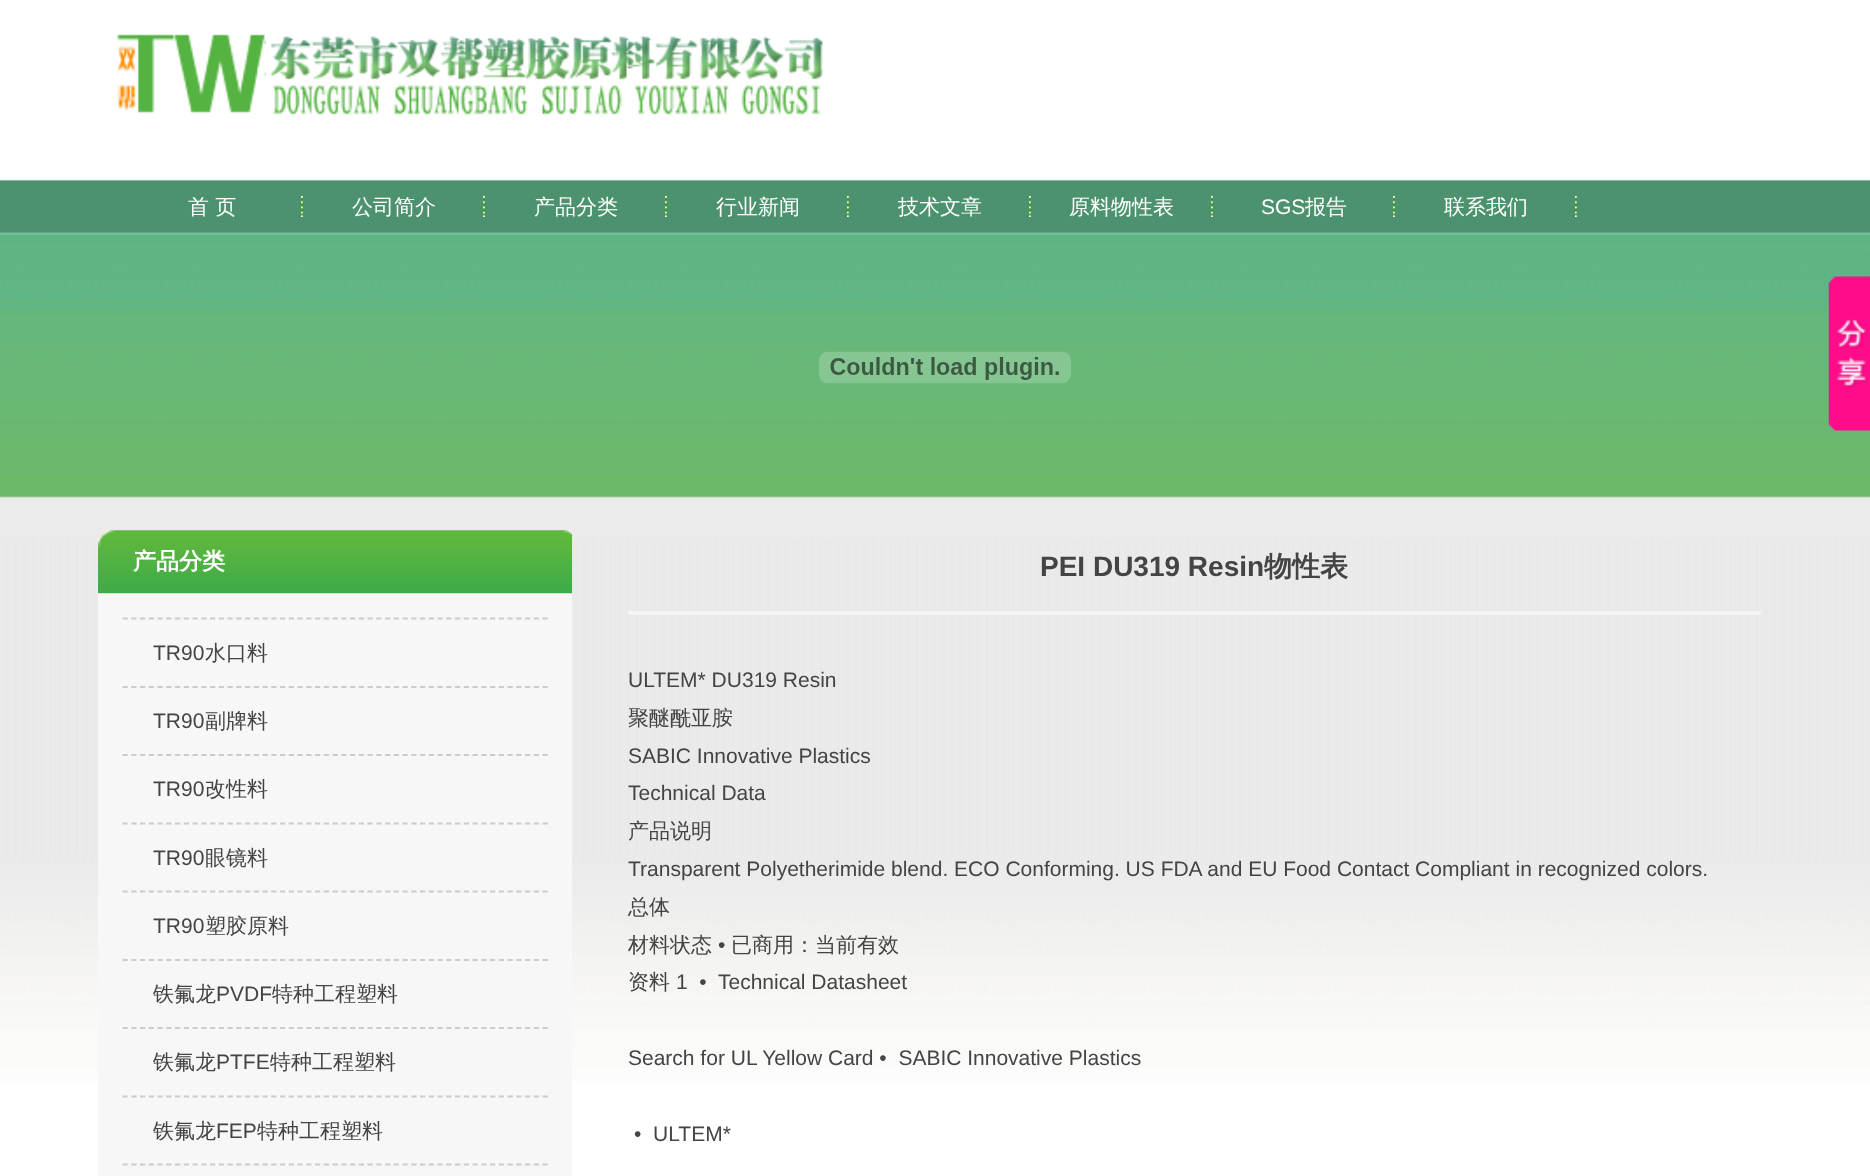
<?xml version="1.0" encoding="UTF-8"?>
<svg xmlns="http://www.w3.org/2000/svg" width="1870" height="1176">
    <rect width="100%" height="100%" fill="#FFFFFF"/>
    <image x="0" y="179" width="1870" height="902" href="img_01.png"/>
    <image x="116" y="34" width="707" height="81" href="img_02.png"/>
    <image x="301" y="196" width="2" height="21" href="img_03.png"/>
    <text x="188" y="214" font-family="WenQuanYi Zen Hei" font-size="21" font-weight="500" fill="#FFFFFF">首 页</text>
    <image x="483" y="196" width="2" height="21" href="img_03.png"/>
    <text x="352" y="214" font-family="WenQuanYi Zen Hei" font-size="21" font-weight="500" fill="#FFFFFF">公司简介</text>
    <image x="665" y="196" width="2" height="21" href="img_03.png"/>
    <text x="534" y="214" font-family="WenQuanYi Zen Hei" font-size="21" font-weight="500" fill="#FFFFFF">产品分类</text>
    <image x="847" y="196" width="2" height="21" href="img_03.png"/>
    <text x="716" y="214" font-family="WenQuanYi Zen Hei" font-size="21" font-weight="500" fill="#FFFFFF">行业新闻</text>
    <image x="1029" y="196" width="2" height="21" href="img_03.png"/>
    <text x="898" y="214" font-family="WenQuanYi Zen Hei" font-size="21" font-weight="500" fill="#FFFFFF">技术文章</text>
    <image x="1211" y="196" width="2" height="21" href="img_03.png"/>
    <text x="1069" y="214" font-family="WenQuanYi Zen Hei" font-size="21" font-weight="500" fill="#FFFFFF">原料物性表</text>
    <image x="1393" y="196" width="2" height="21" href="img_03.png"/>
    <text x="1261" y="214" font-family="Liberation Sans" font-size="21" fill="#FFFFFF">SGS</text>
    <text x="1305" y="214" font-family="WenQuanYi Zen Hei" font-size="21" font-weight="500" fill="#FFFFFF">报告</text>
    <image x="1575" y="196" width="2" height="21" href="img_03.png"/>
    <text x="1444" y="214" font-family="WenQuanYi Zen Hei" font-size="21" font-weight="500" fill="#FFFFFF">联系我们</text>
    <image x="819" y="351" width="252" height="33" href="img_04.png"/>
    <rect x="98" y="593" width="474" height="583" fill="#F7F7F7"/>
    <image x="98" y="530" width="475" height="64" href="img_05.png"/>
    <text x="133" y="569" font-family="WenQuanYi Zen Hei" font-size="23" font-weight="700" fill="#FFFFFF">产品分类</text>
    <path d="M 122.5 618.5 H 548" fill="none" stroke="#CCCCCC" stroke-width="1.8" stroke-dasharray="5.25 3.5"/>
    <path d="M 122.5 687 H 548" fill="none" stroke="#CCCCCC" stroke-width="1.8" stroke-dasharray="5.25 3.5"/>
    <text x="153" y="660" font-family="Liberation Sans" font-size="21" fill="#444444">TR90</text>
    <text x="205" y="660" font-family="WenQuanYi Zen Hei" font-size="21" font-weight="500" fill="#444444">水口料</text>
    <path d="M 122.5 755 H 548" fill="none" stroke="#CCCCCC" stroke-width="1.8" stroke-dasharray="5.25 3.5"/>
    <text x="153" y="728" font-family="Liberation Sans" font-size="21" fill="#444444">TR90</text>
    <text x="205" y="728" font-family="WenQuanYi Zen Hei" font-size="21" font-weight="500" fill="#444444">副牌料</text>
    <path d="M 122.5 823.5 H 548" fill="none" stroke="#CCCCCC" stroke-width="1.8" stroke-dasharray="5.25 3.5"/>
    <text x="153" y="796" font-family="Liberation Sans" font-size="21" fill="#444444">TR90</text>
    <text x="205" y="796" font-family="WenQuanYi Zen Hei" font-size="21" font-weight="500" fill="#444444">改性料</text>
    <path d="M 122.5 891.5 H 548" fill="none" stroke="#CCCCCC" stroke-width="1.8" stroke-dasharray="5.25 3.5"/>
    <text x="153" y="865" font-family="Liberation Sans" font-size="21" fill="#444444">TR90</text>
    <text x="205" y="865" font-family="WenQuanYi Zen Hei" font-size="21" font-weight="500" fill="#444444">眼镜料</text>
    <path d="M 122.5 960 H 548" fill="none" stroke="#CCCCCC" stroke-width="1.8" stroke-dasharray="5.25 3.5"/>
    <text x="153" y="933" font-family="Liberation Sans" font-size="21" fill="#444444">TR90</text>
    <text x="205" y="933" font-family="WenQuanYi Zen Hei" font-size="21" font-weight="500" fill="#444444">塑胶原料</text>
    <path d="M 122.5 1028 H 548" fill="none" stroke="#CCCCCC" stroke-width="1.8" stroke-dasharray="5.25 3.5"/>
    <text x="153" y="1001" font-family="WenQuanYi Zen Hei" font-size="21" font-weight="500" fill="#444444">铁氟龙</text>
    <text x="216" y="1001" font-family="Liberation Sans" font-size="21" fill="#444444">PVDF</text>
    <text x="272" y="1001" font-family="WenQuanYi Zen Hei" font-size="21" font-weight="500" fill="#444444">特种工程塑料</text>
    <path d="M 122.5 1096.5 H 548" fill="none" stroke="#CCCCCC" stroke-width="1.8" stroke-dasharray="5.25 3.5"/>
    <text x="153" y="1069" font-family="WenQuanYi Zen Hei" font-size="21" font-weight="500" fill="#444444">铁氟龙</text>
    <text x="216" y="1069" font-family="Liberation Sans" font-size="21" fill="#444444">PTFE</text>
    <text x="270" y="1069" font-family="WenQuanYi Zen Hei" font-size="21" font-weight="500" fill="#444444">特种工程塑料</text>
    <path d="M 122.5 1164.5 H 548" fill="none" stroke="#CCCCCC" stroke-width="1.8" stroke-dasharray="5.25 3.5"/>
    <text x="153" y="1138" font-family="WenQuanYi Zen Hei" font-size="21" font-weight="500" fill="#444444">铁氟龙</text>
    <text x="216" y="1138" font-family="Liberation Sans" font-size="21" fill="#444444">FEP</text>
    <text x="257" y="1138" font-family="WenQuanYi Zen Hei" font-size="21" font-weight="500" fill="#444444">特种工程塑料</text>
    <rect x="628" y="611" width="1133" height="4" fill="#F5F5F5"/>
    <text x="1040" y="576" font-family="Liberation Sans" font-size="28" font-weight="700" fill="#444444">PEI DU319 Resin</text>
    <text x="1264" y="576" font-family="WenQuanYi Zen Hei" font-size="28" font-weight="700" fill="#444444">物性表</text>
    <text x="628" y="687" font-family="Liberation Sans" font-size="21" fill="#444444">ULTEM* DU319 Resin</text>
    <text x="628" y="725" font-family="WenQuanYi Zen Hei" font-size="21" font-weight="500" fill="#444444">聚醚酰亚胺</text>
    <text font-family="Liberation Sans" font-size="21" fill="#444444">
        <tspan x="628" y="763">SABIC Innovative Plastics</tspan>
        <tspan x="628" y="800">Technical Data</tspan>
    </text>
    <text x="628" y="838" font-family="WenQuanYi Zen Hei" font-size="21" font-weight="500" fill="#444444">产品说明</text>
    <text x="628" y="876" font-family="Liberation Sans" font-size="21" fill="#444444">Transparent Polyetherimide blend. ECO Conforming. US FDA and EU Food Contact Compliant in recognized colors.</text>
    <text font-family="WenQuanYi Zen Hei" font-size="21" font-weight="500" fill="#444444">
        <tspan x="628" y="914">总体</tspan>
        <tspan x="628" y="952">材料状态</tspan>
    </text>
    <text x="718" y="952" font-family="Liberation Sans" font-size="21" fill="#444444">•</text>
    <text x="731" y="952" font-family="WenQuanYi Zen Hei" font-size="21" font-weight="500" fill="#444444">已商用：当前有效</text>
    <text x="628" y="989" font-family="WenQuanYi Zen Hei" font-size="21" font-weight="500" fill="#444444">资料</text>
    <text x="676" y="989" font-family="Liberation Sans" font-size="21" fill="#444444" xml:space="preserve">1  •  Technical Datasheet</text>
    <text x="628" y="1065" font-family="Liberation Sans" font-size="21" fill="#444444" xml:space="preserve">Search for UL Yellow Card •  SABIC Innovative Plastics</text>
    <text x="634" y="1141" font-family="Liberation Sans" font-size="21" fill="#444444" xml:space="preserve">•  ULTEM*</text>
    <image x="1828" y="276" width="42" height="155" href="img_06.png"/>
</svg>
